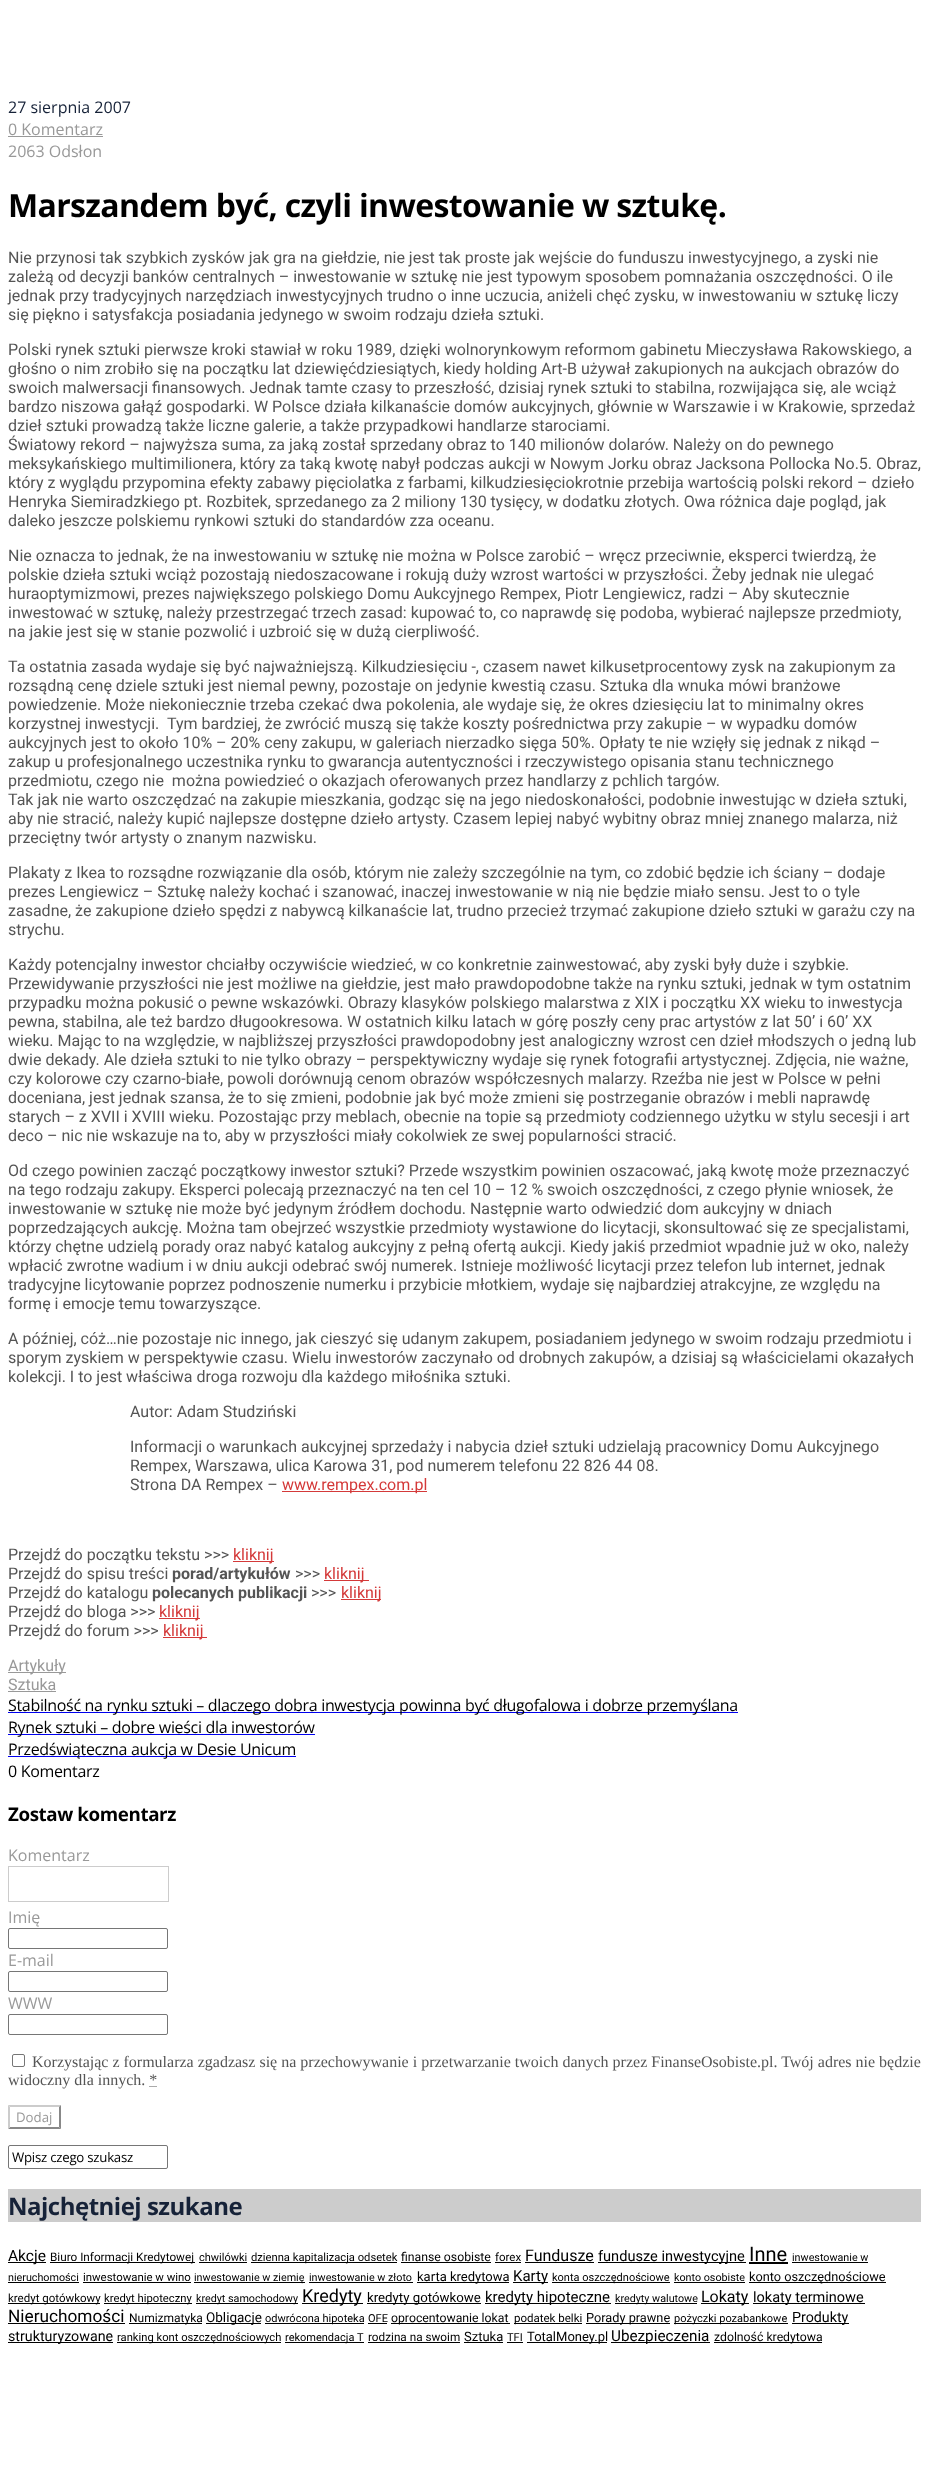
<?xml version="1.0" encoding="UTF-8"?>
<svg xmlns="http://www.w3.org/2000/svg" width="929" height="2466">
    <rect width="100%" height="100%" fill="#FFFFFF"/>
    <text x="8" y="113" font-family="Open Sans" font-size="16" fill="#162238">27 sierpnia 2007</text>
    <text x="8" y="135" font-family="Open Sans" font-size="16" fill="#999999">0 Komentarz</text>
    <rect x="8" y="136" width="95" height="1" fill="#999999"/>
    <text x="8" y="157" font-family="Open Sans" font-size="16" fill="#999999">2063 Odsłon</text>
    <text x="8" y="217" font-family="Open Sans" font-size="32" font-weight="700" letter-spacing="-0.65" fill="#000000">Marszandem być, czyli inwestowanie w sztukę.</text>
    <text font-family="Roboto" font-size="16" fill="#555555">
        <tspan x="8" y="263">Nie przynosi tak szybkich zysków jak gra na giełdzie, nie jest tak proste jak wejście do funduszu inwestycyjnego, a zyski nie</tspan>
        <tspan x="8" y="282">zależą od decyzji banków centralnych – inwestowanie w sztukę nie jest typowym sposobem pomnażania oszczędności. O ile</tspan>
        <tspan x="8" y="301">jednak przy tradycyjnych narzędziach inwestycyjnych trudno o inne uczucia, aniżeli chęć zysku, w inwestowaniu w sztukę liczy</tspan>
        <tspan x="8" y="320">się piękno i satysfakcja posiadania jedynego w swoim rodzaju dzieła sztuki.</tspan>
    </text>
    <text font-family="Roboto" font-size="16" fill="#555555">
        <tspan x="8" y="355">Polski rynek sztuki pierwsze kroki stawiał w roku 1989, dzięki wolnorynkowym reformom gabinetu Mieczysława Rakowskiego, a</tspan>
        <tspan x="8" y="374">głośno o nim zrobiło się na początku lat dziewięćdziesiątych, kiedy holding Art-B używał zakupionych na aukcjach obrazów do</tspan>
        <tspan x="8" y="393">swoich malwersacji finansowych. Jednak tamte czasy to przeszłość, dzisiaj rynek sztuki to stabilna, rozwijająca się, ale wciąż</tspan>
        <tspan x="8" y="412">bardzo niszowa gałąź gospodarki. W Polsce działa kilkanaście domów aukcyjnych, głównie w Warszawie i w Krakowie, sprzedaż</tspan>
        <tspan x="8" y="431">dzieł sztuki prowadzą także liczne galerie, a także przypadkowi handlarze starociami.</tspan>
        <tspan x="8" y="450">Światowy rekord – najwyższa suma, za jaką został sprzedany obraz to 140 milionów dolarów. Należy on do pewnego</tspan>
        <tspan x="8" y="469">meksykańskiego multimilionera, który za taką kwotę nabył podczas aukcji w Nowym Jorku obraz Jacksona Pollocka No.5. Obraz,</tspan>
        <tspan x="8" y="488">który z wyglądu przypomina efekty zabawy pięciolatka z farbami, kilkudziesięciokrotnie przebija wartością polski rekord – dzieło</tspan>
        <tspan x="8" y="507">Henryka Siemiradzkiego pt. Rozbitek, sprzedanego za 2 miliony 130 tysięcy, w dodatku złotych. Owa różnica daje pogląd, jak</tspan>
        <tspan x="8" y="526">daleko jeszcze polskiemu rynkowi sztuki do standardów zza oceanu.</tspan>
    </text>
    <text font-family="Roboto" font-size="16" fill="#555555">
        <tspan x="8" y="561">Nie oznacza to jednak, że na inwestowaniu w sztukę nie można w Polsce zarobić – wręcz przeciwnie, eksperci twierdzą, że</tspan>
        <tspan x="8" y="580">polskie dzieła sztuki wciąż pozostają niedoszacowane i rokują duży wzrost wartości w przyszłości. Żeby jednak nie ulegać</tspan>
        <tspan x="8" y="599">huraoptymizmowi, prezes największego polskiego Domu Aukcyjnego Rempex, Piotr Lengiewicz, radzi – Aby skutecznie</tspan>
        <tspan x="8" y="618">inwestować w sztukę, należy przestrzegać trzech zasad: kupować to, co naprawdę się podoba, wybierać najlepsze przedmioty,</tspan>
        <tspan x="8" y="637">na jakie jest się w stanie pozwolić i uzbroić się w dużą cierpliwość.</tspan>
    </text>
    <text font-family="Roboto" font-size="16" fill="#555555" xml:space="preserve"><tspan x="8" y="672">Ta ostatnia zasada wydaje się być najważniejszą. Kilkudziesięciu -, czasem nawet kilkusetprocentowy zysk na zakupionym za</tspan><tspan x="8" y="691">rozsądną cenę dziele sztuki jest niemal pewny, pozostaje on jedynie kwestią czasu. Sztuka dla wnuka mówi branżowe</tspan><tspan x="8" y="710">powiedzenie. Może niekoniecznie trzeba czekać dwa pokolenia, ale wydaje się, że okres dziesięciu lat to minimalny okres</tspan><tspan x="8" y="729">korzystnej inwestycji.  Tym bardziej, że zwrócić muszą się także koszty pośrednictwa przy zakupie – w wypadku domów</tspan><tspan x="8" y="748">aukcyjnych jest to około 10% – 20% ceny zakupu, w galeriach nierzadko sięga 50%. Opłaty te nie wzięły się jednak z nikąd –</tspan><tspan x="8" y="767">zakup u profesjonalnego uczestnika rynku to gwarancja autentyczności i rzeczywistego opisania stanu technicznego</tspan><tspan x="8" y="786">przedmiotu, czego nie  można powiedzieć o okazjach oferowanych przez handlarzy z pchlich targów.</tspan><tspan x="8" y="805">Tak jak nie warto oszczędzać na zakupie mieszkania, godząc się na jego niedoskonałości, podobnie inwestując w dzieła sztuki,</tspan><tspan x="8" y="824">aby nie stracić, należy kupić najlepsze dostępne dzieło artysty. Czasem lepiej nabyć wybitny obraz mniej znanego malarza, niż</tspan><tspan x="8" y="843">przeciętny twór artysty o znanym nazwisku.</tspan></text>
    <text font-family="Roboto" font-size="16" fill="#555555">
        <tspan x="8" y="878">Plakaty z Ikea to rozsądne rozwiązanie dla osób, którym nie zależy szczególnie na tym, co zdobić będzie ich ściany – dodaje</tspan>
        <tspan x="8" y="897">prezes Lengiewicz – Sztukę należy kochać i szanować, inaczej inwestowanie w nią nie będzie miało sensu. Jest to o tyle</tspan>
        <tspan x="8" y="916">zasadne, że zakupione dzieło spędzi z nabywcą kilkanaście lat, trudno przecież trzymać zakupione dzieło sztuki w garażu czy na</tspan>
        <tspan x="8" y="935">strychu.</tspan>
    </text>
    <text font-family="Roboto" font-size="16" fill="#555555">
        <tspan x="8" y="970">Każdy potencjalny inwestor chciałby oczywiście wiedzieć, w co konkretnie zainwestować, aby zyski były duże i szybkie.</tspan>
        <tspan x="8" y="989">Przewidywanie przyszłości nie jest możliwe na giełdzie, jest mało prawdopodobne także na rynku sztuki, jednak w tym ostatnim</tspan>
        <tspan x="8" y="1008">przypadku można pokusić o pewne wskazówki. Obrazy klasyków polskiego malarstwa z XIX i początku XX wieku to inwestycja</tspan>
        <tspan x="8" y="1027">pewna, stabilna, ale też bardzo długookresowa. W ostatnich kilku latach w górę poszły ceny prac artystów z lat 50’ i 60’ XX</tspan>
        <tspan x="8" y="1046">wieku. Mając to na względzie, w najbliższej przyszłości prawdopodobny jest analogiczny wzrost cen dzieł młodszych o jedną lub</tspan>
        <tspan x="8" y="1065">dwie dekady. Ale dzieła sztuki to nie tylko obrazy – perspektywiczny wydaje się rynek fotografii artystycznej. Zdjęcia, nie ważne,</tspan>
        <tspan x="8" y="1084">czy kolorowe czy czarno-białe, powoli dorównują cenom obrazów współczesnych malarzy. Rzeźba nie jest w Polsce w pełni</tspan>
        <tspan x="8" y="1103">doceniana, jest jednak szansa, że to się zmieni, podobnie jak być może zmieni się postrzeganie obrazów i mebli naprawdę</tspan>
        <tspan x="8" y="1122">starych – z XVII i XVIII wieku. Pozostając przy meblach, obecnie na topie są przedmioty codziennego użytku w stylu secesji i art</tspan>
        <tspan x="8" y="1141">deco – nic nie wskazuje na to, aby w przyszłości miały cokolwiek ze swej popularności stracić.</tspan>
    </text>
    <text font-family="Roboto" font-size="16" fill="#555555">
        <tspan x="8" y="1176">Od czego powinien zacząć początkowy inwestor sztuki? Przede wszystkim powinien oszacować, jaką kwotę może przeznaczyć</tspan>
        <tspan x="8" y="1195">na tego rodzaju zakupy. Eksperci polecają przeznaczyć na ten cel 10 – 12 % swoich oszczędności, z czego płynie wniosek, że</tspan>
        <tspan x="8" y="1214">inwestowanie w sztukę nie może być jedynym źródłem dochodu. Następnie warto odwiedzić dom aukcyjny w dniach</tspan>
        <tspan x="8" y="1233">poprzedzających aukcję. Można tam obejrzeć wszystkie przedmioty wystawione do licytacji, skonsultować się ze specjalistami,</tspan>
        <tspan x="8" y="1252">którzy chętne udzielą porady oraz nabyć katalog aukcyjny z pełną ofertą aukcji. Kiedy jakiś przedmiot wpadnie już w oko, należy</tspan>
        <tspan x="8" y="1271">wpłacić zwrotne wadium i w dniu aukcji odebrać swój numerek. Istnieje możliwość licytacji przez telefon lub internet, jednak</tspan>
        <tspan x="8" y="1290">tradycyjne licytowanie poprzez podnoszenie numerku i przybicie młotkiem, wydaje się najbardziej atrakcyjne, ze względu na</tspan>
        <tspan x="8" y="1309">formę i emocje temu towarzyszące.</tspan>
    </text>
    <text font-family="Roboto" font-size="16" fill="#555555">
        <tspan x="8" y="1344">A później, cóż…nie pozostaje nic innego, jak cieszyć się udanym zakupem, posiadaniem jedynego w swoim rodzaju przedmiotu i</tspan>
        <tspan x="8" y="1363">sporym zyskiem w perspektywie czasu. Wielu inwestorów zaczynało od drobnych zakupów, a dzisiaj są właścicielami okazałych</tspan>
        <tspan x="8" y="1382">kolekcji. I to jest właściwa droga rozwoju dla każdego miłośnika sztuki.</tspan>
    </text>
    <text x="130" y="1417" font-family="Roboto" font-size="16" fill="#555555">Autor: Adam Studziński</text>
    <text font-family="Roboto" font-size="16" fill="#555555">
        <tspan x="130" y="1452">Informacji o warunkach aukcyjnej sprzedaży i nabycia dzieł sztuki udzielają pracownicy Domu Aukcyjnego</tspan>
        <tspan x="130" y="1471">Rempex, Warszawa, ulica Karowa 31, pod numerem telefonu 22 826 44 08.</tspan>
        <tspan x="130" y="1490">Strona DA Rempex –</tspan>
    </text>
    <rect x="282" y="1491" width="145" height="1" fill="#D43939"/>
    <text x="282" y="1490" font-family="Roboto" font-size="16" fill="#D43939">www.rempex.com.pl</text>
    <text x="8" y="1560" font-family="Roboto" font-size="16" fill="#555555">Przejdź do początku tekstu &gt;&gt;&gt;</text>
    <rect x="233" y="1561" width="41" height="1" fill="#D43939"/>
    <text x="233" y="1560" font-family="Roboto" font-size="16" fill="#D43939">kliknij</text>
    <text x="8" y="1579" font-family="Roboto" font-size="16" fill="#555555">Przejdź do spisu treści</text>
    <text x="172" y="1579" font-family="Roboto" font-size="16" font-weight="700" fill="#555555">porad/artykułów</text>
    <text x="295" y="1579" font-family="Roboto" font-size="16" fill="#555555">&gt;&gt;&gt;</text>
    <rect x="324" y="1580" width="45" height="1" fill="#D43939"/>
    <text x="324" y="1579" font-family="Roboto" font-size="16" fill="#D43939">kliknij</text>
    <text x="8" y="1598" font-family="Roboto" font-size="16" fill="#555555">Przejdź do katalogu</text>
    <text x="152" y="1598" font-family="Roboto" font-size="16" font-weight="700" fill="#555555">polecanych publikacji</text>
    <text x="311" y="1598" font-family="Roboto" font-size="16" fill="#555555">&gt;&gt;&gt;</text>
    <rect x="341" y="1599" width="40" height="1" fill="#D43939"/>
    <text x="341" y="1598" font-family="Roboto" font-size="16" fill="#D43939">kliknij</text>
    <text x="8" y="1617" font-family="Roboto" font-size="16" fill="#555555">Przejdź do bloga &gt;&gt;&gt;</text>
    <rect x="159" y="1618" width="41" height="1" fill="#D43939"/>
    <text x="159" y="1617" font-family="Roboto" font-size="16" fill="#D43939">kliknij</text>
    <text x="8" y="1636" font-family="Roboto" font-size="16" fill="#555555">Przejdź do forum &gt;&gt;&gt;</text>
    <rect x="163" y="1637" width="44" height="1" fill="#D43939"/>
    <text x="163" y="1636" font-family="Roboto" font-size="16" fill="#D43939">kliknij</text>
    <rect x="8" y="1672" width="58" height="1" fill="#999999"/>
    <text font-family="Roboto" font-size="16" fill="#999999">
        <tspan x="8" y="1671">Artykuły</tspan>
        <tspan x="8" y="1690">Sztuka</tspan>
    </text>
    <rect x="8" y="1691" width="48" height="1" fill="#999999"/>
    <rect x="8" y="1712" width="730" height="1" fill="#0000EE"/>
    <text x="8" y="1711" font-family="Open Sans" font-size="16" letter-spacing="-0.32" fill="#000000">Stabilność na rynku sztuki – dlaczego dobra inwestycja powinna być długofalowa i dobrze przemyślana</text>
    <rect x="8" y="1734" width="307" height="1" fill="#0000EE"/>
    <text x="8" y="1733" font-family="Open Sans" font-size="16" letter-spacing="-0.32" fill="#000000">Rynek sztuki – dobre wieści dla inwestorów</text>
    <rect x="8" y="1756" width="288" height="1" fill="#0000EE"/>
    <text font-family="Open Sans" font-size="16" letter-spacing="-0.32" fill="#000000">
        <tspan x="8" y="1755">Przedświąteczna aukcja w Desie Unicum</tspan>
        <tspan x="8" y="1777">0 Komentarz</tspan>
    </text>
    <text x="8" y="1821" font-family="Open Sans" font-size="18.75" font-weight="700" letter-spacing="-0.4" fill="#000000">Zostaw komentarz</text>
    <text x="8" y="1861" font-family="Open Sans" font-size="16" fill="#999999">Komentarz</text>
    <rect x="8.5" y="1866.5" width="160" height="35" fill="none" stroke="#CCCCCC"/>
    <text x="8" y="1923" font-family="Open Sans" font-size="16" fill="#999999">Imię</text>
    <rect x="8.5" y="1928.5" width="159" height="20" rx="1.5" fill="none" stroke="#767676"/>
    <text x="8" y="1966" font-family="Open Sans" font-size="16" fill="#999999">E-mail</text>
    <rect x="8.5" y="1971.5" width="159" height="20" rx="1.5" fill="none" stroke="#767676"/>
    <text x="8" y="2009" font-family="Open Sans" font-size="16" fill="#999999">WWW</text>
    <rect x="8.5" y="2014.5" width="159" height="20" rx="1.5" fill="none" stroke="#767676"/>
    <rect x="12.5" y="2054.5" width="12" height="12" rx="1.5" fill="none" stroke="#767676"/>
    <text x="32" y="2067" font-family="Liberation Serif" font-size="16" fill="#555555">Korzystając z formularza zgadzasz się na przechowywanie i przetwarzanie twoich danych przez FinanseOsobiste.pl. Twój adres nie będzie</text>
    <text x="8" y="2085" font-family="Liberation Serif" font-size="16" fill="#555555">widoczny dla innych. *</text>
    <path d="M 149.5 2086.5 H 157.5" fill="none" stroke="#555555" stroke-dasharray="1 1"/>
    <path d="M 8 2105 H 61 L 59 2107 H 10 Z" fill="#CCCCCC"/>
    <path d="M 61 2105 V 2129 L 59 2127 V 2107 Z" fill="#888888"/>
    <path d="M 61 2129 H 8 L 10 2127 H 59 Z" fill="#888888"/>
    <path d="M 8 2129 V 2105 L 10 2107 V 2127 Z" fill="#CCCCCC"/>
    <text x="16" y="2122" font-family="Open Sans" font-size="13.25" fill="#999999">Dodaj</text>
    <rect x="8.5" y="2145.5" width="159" height="23" rx="1.5" fill="none" stroke="#767676"/>
    <text x="12" y="2162" font-family="Open Sans" font-size="13.25" letter-spacing="-0.25" fill="#000000">Wpisz czego szukasz</text>
    <rect x="8" y="2189" width="913" height="33" fill="#CCCCCC"/>
    <text x="8" y="2215" font-family="Open Sans" font-size="24" font-weight="700" letter-spacing="-0.5" fill="#162238">Najchętniej szukane</text>
    <rect x="8" y="2262" width="38" height="1" fill="#000000"/>
    <text x="8" y="2261" font-family="Roboto" font-size="15.5" fill="#000000">Akcje</text>
    <rect x="50" y="2262" width="145" height="1" fill="#000000"/>
    <text x="50" y="2261" font-family="Roboto" font-size="11.75" fill="#000000">Biuro Informacji Kredytowej</text>
    <text x="199" y="2261" font-family="Roboto" font-size="11" fill="#000000">chwilówki</text>
    <rect x="199" y="2262" width="48" height="1" fill="#000000"/>
    <rect x="251" y="2262" width="146" height="1" fill="#000000"/>
    <text x="251" y="2261" font-family="Roboto" font-size="11.2" fill="#000000">dzienna kapitalizacja odsetek</text>
    <text x="401" y="2261" font-family="Roboto" font-size="12.25" fill="#000000">finanse osobiste</text>
    <rect x="401" y="2262" width="90" height="1" fill="#000000"/>
    <text x="495" y="2261" font-family="Roboto" font-size="11.5" fill="#000000">forex</text>
    <rect x="495" y="2262" width="26" height="1" fill="#000000"/>
    <text x="525" y="2261" font-family="Roboto" font-size="16" fill="#000000">Fundusze</text>
    <rect x="525" y="2262" width="69" height="1" fill="#000000"/>
    <rect x="598" y="2262" width="148" height="1" fill="#000000"/>
    <text x="598" y="2261" font-family="Roboto" font-size="14.6" fill="#000000">fundusze inwestycyjne</text>
    <text x="749" y="2261" font-family="Roboto" font-size="20" fill="#000000">Inne</text>
    <rect x="749" y="2262" width="39" height="2" fill="#000000"/>
    <text x="792" y="2261" font-family="Roboto" font-size="10.75" fill="#000000">inwestowanie w</text>
    <rect x="792" y="2262" width="76" height="1" fill="#000000"/>
    <text x="8" y="2281" font-family="Roboto" font-size="10.75" fill="#000000">nieruchomości</text>
    <rect x="8" y="2282" width="71" height="1" fill="#000000"/>
    <text x="83" y="2281" font-family="Roboto" font-size="11.4" fill="#000000">inwestowanie w wino</text>
    <rect x="83" y="2282" width="108" height="1" fill="#000000"/>
    <rect x="194" y="2282" width="111" height="1" fill="#000000"/>
    <text x="194" y="2281" font-family="Roboto" font-size="10.75" fill="#000000">inwestowanie w ziemię</text>
    <text x="309" y="2281" font-family="Roboto" font-size="10.75" fill="#000000">inwestowanie w złoto</text>
    <rect x="309" y="2282" width="104" height="1" fill="#000000"/>
    <rect x="417" y="2282" width="92" height="1" fill="#000000"/>
    <text x="417" y="2281" font-family="Roboto" font-size="13" fill="#000000">karta kredytowa</text>
    <rect x="513" y="2282" width="35" height="1" fill="#000000"/>
    <text x="513" y="2281" font-family="Roboto" font-size="15" fill="#000000">Karty</text>
    <rect x="552" y="2282" width="118" height="1" fill="#000000"/>
    <text x="552" y="2281" font-family="Roboto" font-size="11" fill="#000000">konta oszczędnościowe</text>
    <text x="674" y="2281" font-family="Roboto" font-size="10.75" fill="#000000">konto osobiste</text>
    <rect x="674" y="2282" width="71" height="1" fill="#000000"/>
    <rect x="749" y="2282" width="137" height="1" fill="#000000"/>
    <text x="749" y="2281" font-family="Roboto" font-size="12.75" fill="#000000">konto oszczędnościowe</text>
    <rect x="8" y="2303" width="92" height="1" fill="#000000"/>
    <text x="8" y="2302" font-family="Roboto" font-size="11.5" fill="#000000">kredyt gotówkowy</text>
    <rect x="104" y="2303" width="88" height="1" fill="#000000"/>
    <text x="104" y="2302" font-family="Roboto" font-size="11.25" fill="#000000">kredyt hipoteczny</text>
    <rect x="196" y="2303" width="102" height="1" fill="#000000"/>
    <text x="196" y="2302" font-family="Roboto" font-size="10.75" fill="#000000">kredyt samochodowy</text>
    <rect x="302" y="2303" width="61" height="1" fill="#000000"/>
    <text x="302" y="2302" font-family="Roboto" font-size="18" fill="#000000">Kredyty</text>
    <rect x="367" y="2303" width="114" height="1" fill="#000000"/>
    <text x="367" y="2302" font-family="Roboto" font-size="13.25" fill="#000000">kredyty gotówkowe</text>
    <rect x="485" y="2303" width="126" height="1" fill="#000000"/>
    <text x="485" y="2302" font-family="Roboto" font-size="15" fill="#000000">kredyty hipoteczne</text>
    <rect x="615" y="2303" width="82" height="1" fill="#000000"/>
    <text x="615" y="2302" font-family="Roboto" font-size="10.75" fill="#000000">kredyty walutowe</text>
    <rect x="701" y="2303" width="48" height="1" fill="#000000"/>
    <text x="701" y="2302" font-family="Roboto" font-size="16" fill="#000000">Lokaty</text>
    <rect x="753" y="2303" width="112" height="1" fill="#000000"/>
    <text x="753" y="2302" font-family="Roboto" font-size="14.5" fill="#000000">lokaty terminowe</text>
    <text x="8" y="2322" font-family="Roboto" font-size="17.25" fill="#000000">Nieruchomości</text>
    <rect x="8" y="2323" width="117" height="1" fill="#000000"/>
    <rect x="129" y="2323" width="73" height="1" fill="#000000"/>
    <text x="129" y="2322" font-family="Roboto" font-size="12" fill="#000000">Numizmatyka</text>
    <rect x="206" y="2323" width="55" height="1" fill="#000000"/>
    <text x="206" y="2322" font-family="Roboto" font-size="13.5" fill="#000000">Obligacje</text>
    <rect x="265" y="2323" width="99" height="1" fill="#000000"/>
    <text x="265" y="2322" font-family="Roboto" font-size="11" fill="#000000">odwrócona hipoteka</text>
    <text x="368" y="2322" font-family="Roboto" font-size="11" fill="#000000">OFE</text>
    <rect x="368" y="2323" width="19" height="1" fill="#000000"/>
    <rect x="391" y="2323" width="119" height="1" fill="#000000"/>
    <text x="391" y="2322" font-family="Roboto" font-size="12.25" fill="#000000">oprocentowanie lokat</text>
    <rect x="514" y="2323" width="68" height="1" fill="#000000"/>
    <text x="514" y="2322" font-family="Roboto" font-size="11.5" fill="#000000">podatek belki</text>
    <rect x="586" y="2323" width="84" height="1" fill="#000000"/>
    <text x="586" y="2322" font-family="Roboto" font-size="12.75" fill="#000000">Porady prawne</text>
    <rect x="674" y="2323" width="114" height="1" fill="#000000"/>
    <text x="674" y="2322" font-family="Roboto" font-size="11" fill="#000000">pożyczki pozabankowe</text>
    <rect x="792" y="2323" width="57" height="1" fill="#000000"/>
    <text x="792" y="2322" font-family="Roboto" font-size="14.25" fill="#000000">Produkty</text>
    <rect x="8" y="2342" width="105" height="1" fill="#000000"/>
    <text x="8" y="2341" font-family="Roboto" font-size="14.25" fill="#000000">strukturyzowane</text>
    <rect x="117" y="2342" width="164" height="1" fill="#000000"/>
    <text x="117" y="2341" font-family="Roboto" font-size="11.2" fill="#000000">ranking kont oszczędnościowych</text>
    <rect x="285" y="2342" width="79" height="1" fill="#000000"/>
    <text x="285" y="2341" font-family="Roboto" font-size="11" fill="#000000">rekomendacja T</text>
    <text x="368" y="2341" font-family="Roboto" font-size="11.75" fill="#000000">rodzina na swoim</text>
    <rect x="368" y="2342" width="92" height="1" fill="#000000"/>
    <text x="464" y="2341" font-family="Roboto" font-size="13" fill="#000000">Sztuka</text>
    <rect x="464" y="2342" width="39" height="1" fill="#000000"/>
    <text x="507" y="2341" font-family="Roboto" font-size="11" fill="#000000">TFI</text>
    <rect x="507" y="2342" width="16" height="1" fill="#000000"/>
    <rect x="527" y="2342" width="80" height="1" fill="#000000"/>
    <text x="527" y="2341" font-family="Roboto" font-size="13" fill="#000000">TotalMoney.pl</text>
    <rect x="611" y="2342" width="99" height="1" fill="#000000"/>
    <text x="611" y="2341" font-family="Roboto" font-size="15.25" fill="#000000">Ubezpieczenia</text>
    <rect x="714" y="2342" width="108" height="1" fill="#000000"/>
    <text x="714" y="2341" font-family="Roboto" font-size="12.25" fill="#000000">zdolność kredytowa</text>
</svg>
